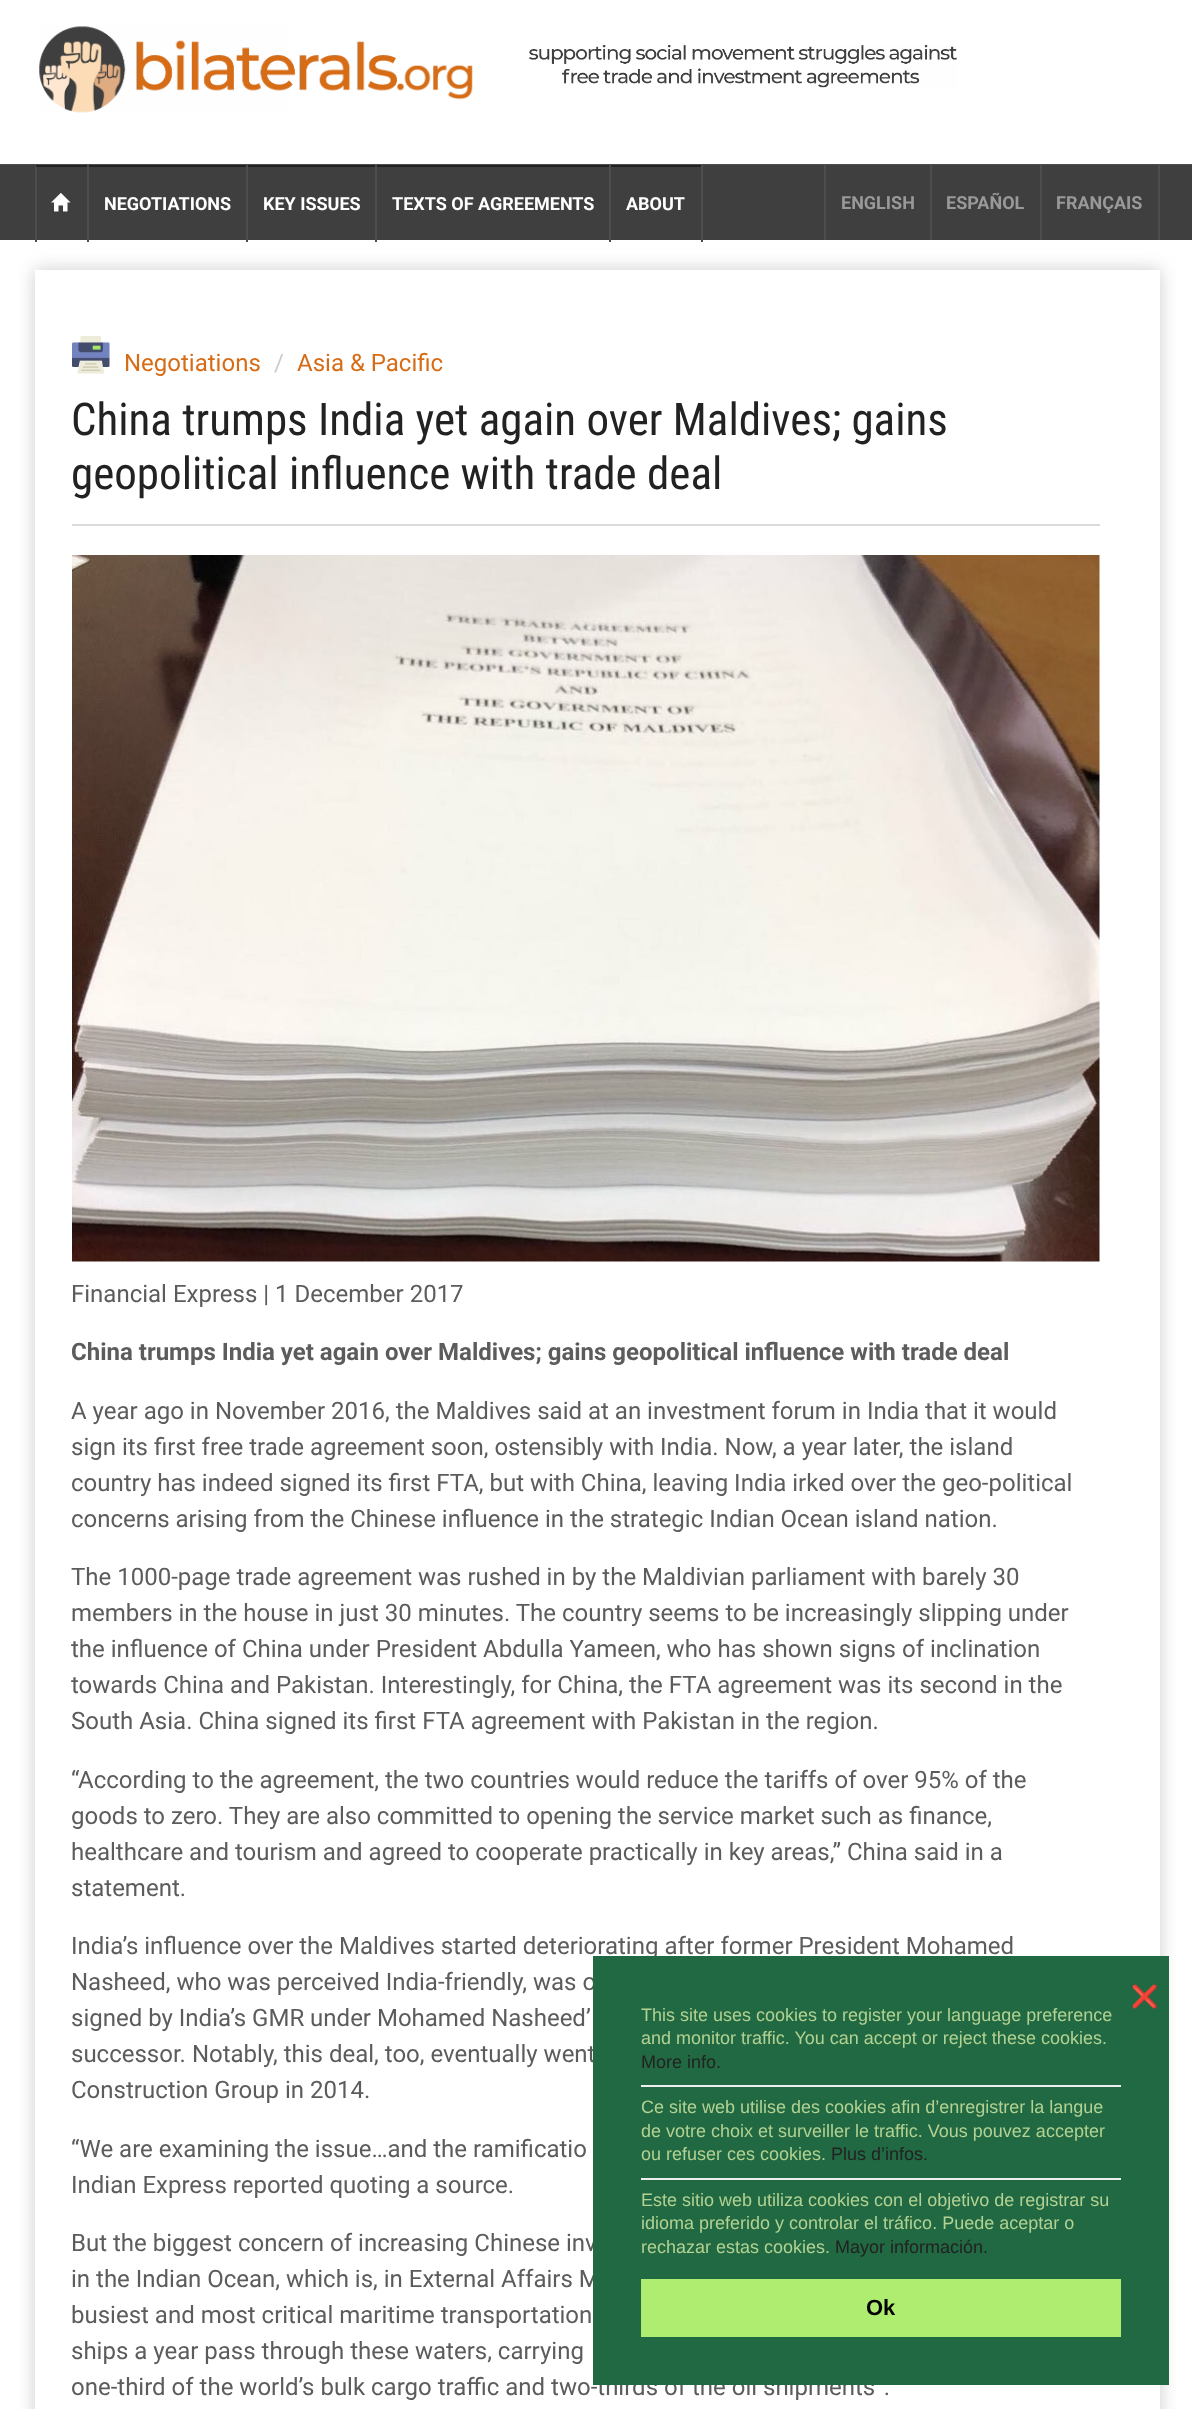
<?xml version="1.0" encoding="UTF-8"?>
<svg xmlns="http://www.w3.org/2000/svg" width="1192" height="2409">
    <defs>
        <clipPath id="clip1"><path d="M 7 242 H 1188 V 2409 H 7 Z M 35 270 H 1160 V 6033 H 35 Z" clip-rule="evenodd"/></clipPath>
        <filter id="blur1" x="-50%" y="-200%" width="200%" height="500%"><feGaussianBlur stdDeviation="9"/></filter>
    </defs>
    <rect width="100%" height="100%" fill="#FFFFFF"/>
    <rect x="0" y="164" width="1192" height="1" fill="#4D4D4D"/>
    <image x="39" y="26" width="434" height="87" href="img_01.png"/>
    <image x="529" y="45" width="428" height="43" href="img_02.png"/>
    <rect x="0" y="165" width="1192" height="75" fill="#3F3F3F"/>
    <rect x="35" y="165" width="2" height="77" fill="#4D4D4D"/>
    <rect x="87" y="165" width="2" height="77" fill="#4D4D4D"/>
    <rect x="36" y="165" width="51" height="2" fill="#222222"/>
    <image x="51" y="192" width="20" height="20" href="img_03.png"/>
    <rect x="246" y="165" width="2" height="77" fill="#4D4D4D"/>
    <rect x="89" y="165" width="157" height="2" fill="#222222"/>
    <text x="104" y="210" font-family="Roboto" font-size="18" font-weight="700" fill="#FFFFFF">NEGOTIATIONS</text>
    <rect x="375" y="165" width="2" height="77" fill="#4D4D4D"/>
    <rect x="248" y="165" width="127" height="2" fill="#222222"/>
    <text x="263" y="210" font-family="Roboto" font-size="18" font-weight="700" fill="#FFFFFF">KEY ISSUES</text>
    <rect x="609" y="165" width="2" height="77" fill="#4D4D4D"/>
    <rect x="377" y="165" width="232" height="2" fill="#222222"/>
    <text x="392" y="210" font-family="Roboto" font-size="18" font-weight="700" fill="#FFFFFF">TEXTS OF AGREEMENTS</text>
    <rect x="701" y="165" width="2" height="77" fill="#4D4D4D"/>
    <rect x="611" y="165" width="90" height="2" fill="#222222"/>
    <text x="626" y="210" font-family="Roboto" font-size="18" font-weight="700" fill="#FFFFFF">ABOUT</text>
    <rect x="930" y="165" width="2" height="75" fill="#4D4D4D"/>
    <rect x="824" y="165" width="2" height="75" fill="#4D4D4D"/>
    <text x="841" y="209" font-family="Roboto" font-size="18" font-weight="700" fill="#999999">ENGLISH</text>
    <rect x="1040" y="165" width="2" height="75" fill="#4D4D4D"/>
    <text x="946" y="209" font-family="Roboto" font-size="18" font-weight="700" fill="#999999">ESPAÑOL</text>
    <rect x="1158" y="165" width="2" height="75" fill="#4D4D4D"/>
    <text x="1056" y="209" font-family="Roboto" font-size="18" font-weight="700" fill="#999999">FRANÇAIS</text>
    <g clip-path="url(#clip1)">
        <rect x="35" y="270" width="1125" height="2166" fill="#CCCCCC" filter="url(#blur1)"/>
    </g>
    <rect x="72" y="524" width="1028" height="2" fill="#DADADA"/>
    <image x="72" y="336" width="38" height="38" href="img_04.png"/>
    <text x="124" y="371" font-family="Roboto" font-size="24" fill="#D76C16">Negotiations</text>
    <text x="274" y="371" font-family="Roboto" font-size="24" fill="#CCCCCC">/</text>
    <text x="297" y="371" font-family="Roboto" font-size="24" fill="#D76C16">Asia &amp; Pacific</text>
    <text font-family="Roboto Condensed" font-size="45" fill="#222222">
        <tspan x="71" y="435">China trumps India yet again over Maldives; gains</tspan>
        <tspan x="71" y="489">geopolitical influence with trade deal</tspan>
    </text>
    <image x="72" y="555" width="1028" height="707" href="img_05.png"/>
    <text x="71" y="1302" font-family="Roboto" font-size="24" fill="#5C5C5C">Financial Express | 1 December 2017</text>
    <text x="71" y="1360" font-family="Roboto" font-size="24" font-weight="700" fill="#5C5C5C">China trumps India yet again over Maldives; gains geopolitical influence with trade deal</text>
    <text font-family="Roboto" font-size="24" fill="#5C5C5C">
        <tspan x="71" y="1419">A year ago in November 2016, the Maldives said at an investment forum in India that it would</tspan>
        <tspan x="71" y="1455">sign its first free trade agreement soon, ostensibly with India. Now, a year later, the island</tspan>
        <tspan x="71" y="1491">country has indeed signed its first FTA, but with China, leaving India irked over the geo-political</tspan>
        <tspan x="71" y="1527">concerns arising from the Chinese influence in the strategic Indian Ocean island nation.</tspan>
    </text>
    <text font-family="Roboto" font-size="24" fill="#5C5C5C">
        <tspan x="71" y="1585">The 1000-page trade agreement was rushed in by the Maldivian parliament with barely 30</tspan>
        <tspan x="71" y="1621">members in the house in just 30 minutes. The country seems to be increasingly slipping under</tspan>
        <tspan x="71" y="1657">the influence of China under President Abdulla Yameen, who has shown signs of inclination</tspan>
        <tspan x="71" y="1693">towards China and Pakistan. Interestingly, for China, the FTA agreement was its second in the</tspan>
        <tspan x="71" y="1729">South Asia. China signed its first FTA agreement with Pakistan in the region.</tspan>
    </text>
    <text font-family="Roboto" font-size="24" fill="#5C5C5C">
        <tspan x="71" y="1788">“According to the agreement, the two countries would reduce the tariffs of over 95% of the</tspan>
        <tspan x="71" y="1824">goods to zero. They are also committed to opening the service market such as finance,</tspan>
        <tspan x="71" y="1860">healthcare and tourism and agreed to cooperate practically in key areas,” China said in a</tspan>
        <tspan x="71" y="1896">statement.</tspan>
    </text>
    <text font-family="Roboto" font-size="24" fill="#5C5C5C">
        <tspan x="71" y="1954">India’s influence over the Maldives started deteriorating after former President Mohamed</tspan>
        <tspan x="71" y="1990">Nasheed, who was perceived India-friendly, was o</tspan>
        <tspan x="71" y="2026">signed by India’s GMR under Mohamed Nasheed’</tspan>
        <tspan x="71" y="2062">successor. Notably, this deal, too, eventually went</tspan>
        <tspan x="71" y="2098">Construction Group in 2014.</tspan>
    </text>
    <text font-family="Roboto" font-size="24" fill="#5C5C5C">
        <tspan x="71" y="2157">“We are examining the issue…and the ramificatio</tspan>
        <tspan x="71" y="2193">Indian Express reported quoting a source.</tspan>
    </text>
    <text font-family="Roboto" font-size="24" fill="#5C5C5C">
        <tspan x="71" y="2251">But the biggest concern of increasing Chinese inv</tspan>
        <tspan x="71" y="2287">in the Indian Ocean, which is, in External Affairs M</tspan>
        <tspan x="71" y="2323">busiest and most critical maritime transportation</tspan>
        <tspan x="71" y="2359">ships a year pass through these waters, carrying</tspan>
        <tspan x="71" y="2395">one-third of the world’s bulk cargo traffic and two-thirds of the oil shipments”.</tspan>
    </text>
    <rect x="593" y="1956" width="576" height="429" fill="#216942"/>
    <text x="1131" y="2004" font-family="Noto Color Emoji" font-size="22" fill="#A4C78A">❌</text>
    <text font-family="Liberation Sans" font-size="18" fill="#B2D192">
        <tspan x="641" y="2021">This site uses cookies to register your language preference</tspan>
        <tspan x="641" y="2044">and monitor traffic. You can accept or reject these cookies.</tspan>
    </text>
    <text x="641" y="2068" font-family="Liberation Sans" font-size="18" fill="#222222">More info.</text>
    <rect x="641" y="2085" width="480" height="2" fill="#EEEEEE"/>
    <text font-family="Liberation Sans" font-size="18" fill="#B2D192">
        <tspan x="641" y="2113">Ce site web utilise des cookies afin d’enregistrer la langue</tspan>
        <tspan x="641" y="2137">de votre choix et surveiller le traffic. Vous pouvez accepter</tspan>
        <tspan x="641" y="2160">ou refuser ces cookies.</tspan>
    </text>
    <text x="831" y="2160" font-family="Liberation Sans" font-size="18" fill="#222222">Plus d’infos.</text>
    <rect x="641" y="2178" width="480" height="2" fill="#EEEEEE"/>
    <text font-family="Liberation Sans" font-size="18" fill="#B2D192">
        <tspan x="641" y="2206">Este sitio web utiliza cookies con el objetivo de registrar su</tspan>
        <tspan x="641" y="2229">idioma preferido y controlar el tráfico. Puede aceptar o</tspan>
        <tspan x="641" y="2253">rechazar estas cookies.</tspan>
    </text>
    <text x="835" y="2253" font-family="Liberation Sans" font-size="18" fill="#222222">Mayor información.</text>
    <rect x="641" y="2279" width="480" height="58" fill="#AFED71"/>
    <text x="866" y="2315" font-family="Liberation Sans" font-size="22" font-weight="700" fill="#000000">Ok</text>
</svg>
